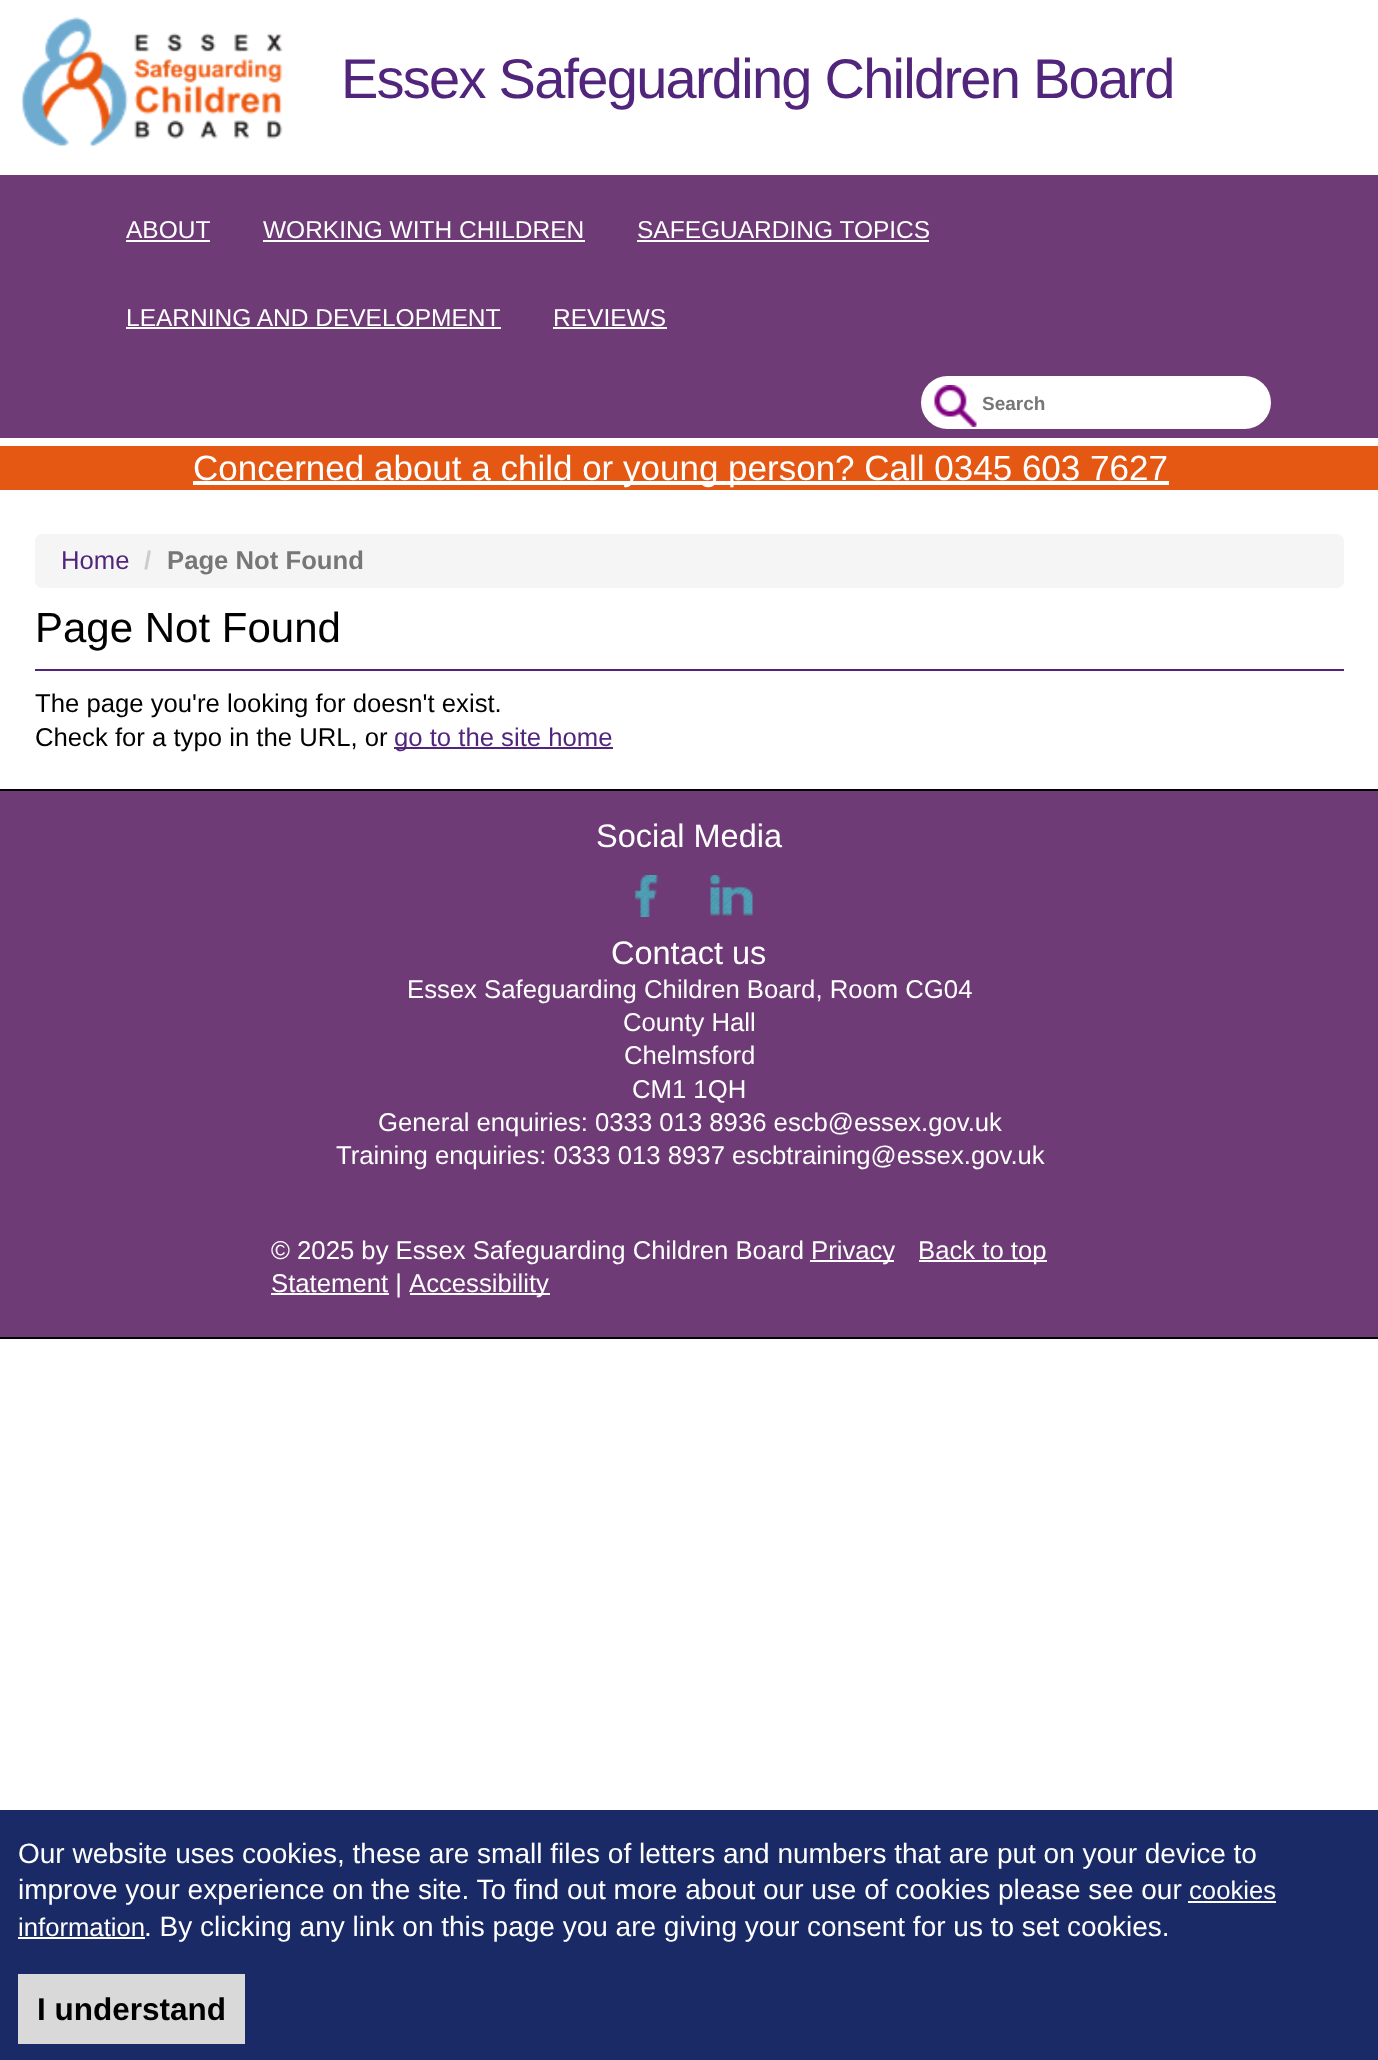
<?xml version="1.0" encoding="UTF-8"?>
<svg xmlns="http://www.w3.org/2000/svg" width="1378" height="2060">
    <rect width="100%" height="100%" fill="#FFFFFF"/>
    <image x="21" y="17" width="262" height="130" href="img_01.png"/>
    <text x="341" y="98" font-family="Liberation Sans" font-size="56" letter-spacing="-1.75" fill="#52257C">Essex Safeguarding Children Board</text>
    <rect x="0" y="175" width="1378" height="263" fill="#6E3B76"/>
    <text x="126" y="238" font-family="Liberation Sans" font-size="24.5" fill="#FFFFFF">ABOUT</text>
    <rect x="126" y="240" width="84" height="2" fill="#FFFFFF"/>
    <text x="263" y="238" font-family="Liberation Sans" font-size="24.5" fill="#FFFFFF">WORKING WITH CHILDREN</text>
    <rect x="263" y="240" width="322" height="2" fill="#FFFFFF"/>
    <text x="637" y="238" font-family="Liberation Sans" font-size="24.5" fill="#FFFFFF">SAFEGUARDING TOPICS</text>
    <rect x="637" y="240" width="292" height="2" fill="#FFFFFF"/>
    <text x="126" y="326" font-family="Liberation Sans" font-size="24.5" fill="#FFFFFF">LEARNING AND DEVELOPMENT</text>
    <rect x="126" y="327" width="375" height="2" fill="#FFFFFF"/>
    <text x="553" y="326" font-family="Liberation Sans" font-size="24.5" fill="#FFFFFF">REVIEWS</text>
    <rect x="553" y="327" width="114" height="2" fill="#FFFFFF"/>
    <rect x="921" y="376" width="350" height="53" rx="26.5" fill="#FFFFFF"/>
    <image x="934" y="385" width="43" height="42" href="img_02.png"/>
    <text x="982" y="410" font-family="Liberation Sans" font-size="19" font-weight="700" fill="#777777">Search</text>
    <rect x="0" y="446" width="1378" height="44" fill="#E55813"/>
    <rect x="193" y="481" width="976" height="4" fill="#FFFFFF"/>
    <text x="193" y="480" font-family="Liberation Sans" font-size="35" fill="#FFFFFF">Concerned about a child or young person? Call 0345 603 7627</text>
    <rect x="35" y="534" width="1309" height="54" rx="7" fill="#F5F5F5"/>
    <text x="61" y="569" font-family="Liberation Sans" font-size="25.7" fill="#52257C">Home</text>
    <text x="144" y="569" font-family="Liberation Sans" font-size="25.7" font-weight="700" fill="#CCCCCC">/</text>
    <text x="167" y="569" font-family="Liberation Sans" font-size="25.7" font-weight="700" fill="#777777">Page Not Found</text>
    <rect x="35" y="669" width="1309" height="2" fill="#52257C"/>
    <text x="35" y="642" font-family="Liberation Sans" font-size="42" fill="#000000">Page Not Found</text>
    <text font-family="Liberation Sans" font-size="25.7" fill="#000000">
        <tspan x="35" y="712">The page you're looking for doesn't exist.</tspan>
        <tspan x="35" y="746">Check for a typo in the URL, or</tspan>
    </text>
    <rect x="394" y="747" width="219" height="2" fill="#52257C"/>
    <text x="394" y="746" font-family="Liberation Sans" font-size="25.7" fill="#52257C">go to the site home</text>
    <rect x="0" y="791" width="1378" height="546" fill="#6E3B76"/>
    <rect x="0" y="789" width="1378" height="2" fill="#000000"/>
    <rect x="0" y="1337" width="1378" height="2" fill="#000000"/>
    <text x="596" y="847" font-family="Liberation Sans" font-size="32.5" fill="#FFFFFF">Social Media</text>
    <image x="634" y="875" width="25" height="42" href="img_03.png"/>
    <image x="710" y="875" width="43" height="41" href="img_04.png"/>
    <text x="611" y="964" font-family="Liberation Sans" font-size="32.5" fill="#FFFFFF">Contact us</text>
    <text x="407" y="998" font-family="Liberation Sans" font-size="25.7" fill="#FFFFFF">Essex Safeguarding Children Board, Room CG04</text>
    <text x="623" y="1031" font-family="Liberation Sans" font-size="25.7" fill="#FFFFFF">County Hall</text>
    <text x="624" y="1064" font-family="Liberation Sans" font-size="25.7" fill="#FFFFFF">Chelmsford</text>
    <text x="632" y="1098" font-family="Liberation Sans" font-size="25.7" fill="#FFFFFF">CM1 1QH</text>
    <text x="378" y="1131" font-family="Liberation Sans" font-size="25.7" fill="#FFFFFF">General enquiries: 0333 013 8936 escb@essex.gov.uk</text>
    <text x="336" y="1164" font-family="Liberation Sans" font-size="25.7" fill="#FFFFFF">Training enquiries: 0333 013 8937 escbtraining@essex.gov.uk</text>
    <text x="271" y="1259" font-family="Liberation Sans" font-size="25.7" fill="#FFFFFF">© 2025 by Essex Safeguarding Children Board</text>
    <rect x="810" y="1260" width="84" height="2" fill="#FFFFFF"/>
    <text x="811" y="1259" font-family="Liberation Sans" font-size="25.7" fill="#FFFFFF">Privacy</text>
    <rect x="271" y="1293" width="118" height="2" fill="#FFFFFF"/>
    <text x="271" y="1292" font-family="Liberation Sans" font-size="25.7" fill="#FFFFFF">Statement |</text>
    <rect x="410" y="1293" width="140" height="2" fill="#FFFFFF"/>
    <text x="409" y="1292" font-family="Liberation Sans" font-size="25.7" fill="#FFFFFF">Accessibility</text>
    <rect x="919" y="1260" width="128" height="2" fill="#FFFFFF"/>
    <text x="918" y="1259" font-family="Liberation Sans" font-size="25.7" fill="#FFFFFF">Back to top</text>
    <rect x="0" y="1810" width="1378" height="250" fill="#192A66"/>
    <text font-family="Liberation Sans" font-size="28" fill="#FFFFFF">
        <tspan x="18" y="1863">Our website uses cookies, these are small files of letters and numbers that are put on your device to</tspan>
        <tspan x="18" y="1899">improve your experience on the site. To find out more about our use of cookies please see our</tspan>
    </text>
    <text x="1189" y="1899" font-family="Liberation Sans" font-size="25.7" fill="#FFFFFF">cookies</text>
    <rect x="1188" y="1901" width="88" height="2" fill="#FFFFFF"/>
    <text x="18" y="1936" font-family="Liberation Sans" font-size="25.7" fill="#FFFFFF">information</text>
    <rect x="18" y="1937" width="127" height="2" fill="#FFFFFF"/>
    <text x="144" y="1936" font-family="Liberation Sans" font-size="28" fill="#FFFFFF">. By clicking any link on this page you are giving your consent for us to set cookies.</text>
    <rect x="18" y="1974" width="227" height="70" fill="#D9D9D9"/>
    <text x="37" y="2020" font-family="Liberation Sans" font-size="31.5" font-weight="700" fill="#000000">I understand</text>
</svg>
